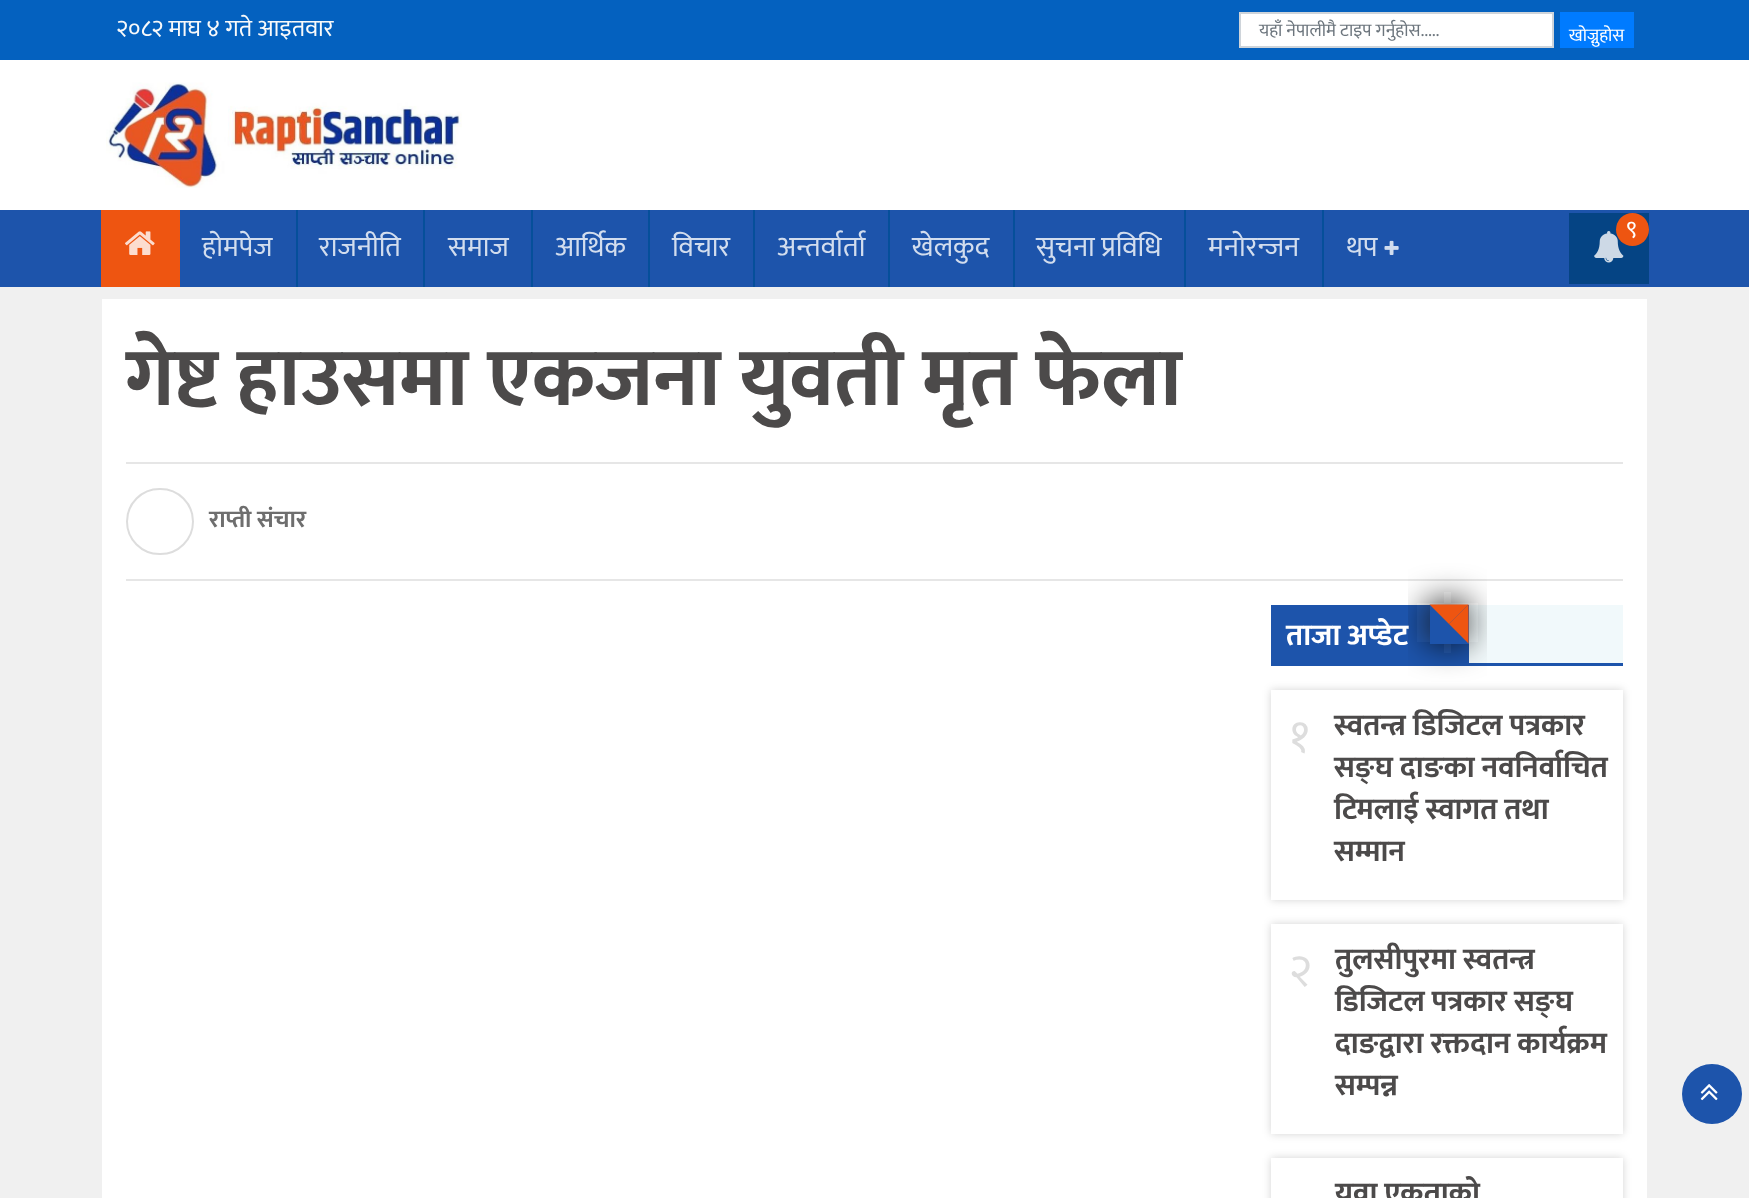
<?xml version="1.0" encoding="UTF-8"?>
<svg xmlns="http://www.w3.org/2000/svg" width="1749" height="1198">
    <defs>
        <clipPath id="clip1"><rect x="1562" y="14" width="70" height="33"/></clipPath>
        <clipPath id="clip2"><path d="M 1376 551 H 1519 V 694 H 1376 Z M 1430 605 H 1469 V 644 H 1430 Z" clip-rule="evenodd"/></clipPath>
        <filter id="blur1" x="-50%" y="-200%" width="200%" height="500%"><feGaussianBlur stdDeviation="17"/></filter>
        <clipPath id="clip3"><path d="M 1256 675 H 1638 V 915 H 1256 Z M 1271 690 H 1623 V 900 H 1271 Z" clip-rule="evenodd"/></clipPath>
        <filter id="blur2" x="-50%" y="-200%" width="200%" height="500%"><feGaussianBlur stdDeviation="4.5"/></filter>
        <clipPath id="clip4"><path d="M 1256 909 H 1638 V 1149 H 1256 Z M 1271 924 H 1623 V 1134 H 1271 Z" clip-rule="evenodd"/></clipPath>
        <clipPath id="clip5"><path d="M 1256 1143 H 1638 V 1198 H 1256 Z M 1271 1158 H 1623 V 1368 H 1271 Z" clip-rule="evenodd"/></clipPath>
    </defs>
    <rect width="100%" height="100%" fill="#F0F0F0"/>
    <rect x="0" y="0" width="1749" height="60" fill="#0461BF"/>
    <text x="116" y="36" font-family="Mukta" font-size="24" fill="#F8F9FA">२०८२ माघ ४ गते आइतवार</text>
    <rect x="1240" y="13" width="313" height="34" fill="#FFFFFF" stroke="#CED4DA" stroke-width="2"/>
    <text x="1259" y="36" font-family="Mukta" font-size="18" fill="#6C757D">यहाँ नेपालीमै टाइप गर्नुहोस.....</text>
    <rect x="1560" y="12" width="74" height="36" fill="#007BFF"/>
    <g clip-path="url(#clip1)">
        <text x="1569" y="41" font-family="Mukta" font-size="18" fill="#FFFFFF">खोज्नुहोस</text>
    </g>
    <rect x="0" y="60" width="1749" height="150" fill="#FFFFFF"/>
    <image x="106" y="82" width="356" height="106" href="img_01.png"/>
    <rect x="0" y="210" width="1749" height="77" fill="#1D54AB"/>
    <rect x="101" y="210" width="79" height="77" fill="#EE5511"/>
    <image x="125" y="231" width="30" height="24" href="img_02.png"/>
    <rect x="296" y="210" width="2" height="77" fill="#054F9A"/>
    <text x="202" y="256" font-family="Mukta" font-size="28.5" fill="#D2DDEE">होमपेज</text>
    <rect x="423" y="210" width="2" height="77" fill="#054F9A"/>
    <text x="319" y="256" font-family="Mukta" font-size="28.5" fill="#D2DDEE">राजनीति</text>
    <rect x="531" y="210" width="2" height="77" fill="#054F9A"/>
    <text x="448" y="256" font-family="Mukta" font-size="28.5" fill="#D2DDEE">समाज</text>
    <rect x="648" y="210" width="2" height="77" fill="#054F9A"/>
    <text x="555" y="256" font-family="Mukta" font-size="28.5" fill="#D2DDEE">आर्थिक</text>
    <rect x="753" y="210" width="2" height="77" fill="#054F9A"/>
    <text x="672" y="256" font-family="Mukta" font-size="28.5" fill="#D2DDEE">विचार</text>
    <rect x="888" y="210" width="2" height="77" fill="#054F9A"/>
    <text x="777" y="256" font-family="Mukta" font-size="28.5" fill="#D2DDEE">अन्तर्वार्ता</text>
    <rect x="1013" y="210" width="2" height="77" fill="#054F9A"/>
    <text x="912" y="256" font-family="Mukta" font-size="28.5" fill="#D2DDEE">खेलकुद</text>
    <rect x="1184" y="210" width="2" height="77" fill="#054F9A"/>
    <text x="1036" y="256" font-family="Mukta" font-size="28.5" fill="#D2DDEE">सुचना प्रविधि</text>
    <rect x="1322" y="210" width="2" height="77" fill="#054F9A"/>
    <text x="1208" y="256" font-family="Mukta" font-size="28.5" fill="#D2DDEE">मनोरन्जन</text>
    <text x="1346" y="256" font-family="Mukta" font-size="28.5" fill="#D2DDEE">थप</text>
    <image x="1384" y="240" width="15" height="15" href="img_03.png"/>
    <rect x="1569" y="213" width="80" height="71" fill="#054484"/>
    <image x="1594" y="231" width="30" height="32" href="img_04.png"/>
    <circle cx="1632.5" cy="229.5" r="16.5" fill="#EE5511"/>
    <text x="1626" y="237" font-family="Mukta" font-size="24" fill="#FFFFFF">९</text>
    <rect x="102" y="299" width="1545" height="899" fill="#FFFFFF"/>
    <text x="126" y="405" font-family="Mukta" font-size="82.5" font-weight="700" fill="#4C4A4A">गेष्ट हाउसमा एकजना युवती मृत फेला</text>
    <rect x="126" y="462" width="1497" height="2" fill="#E6E6E6"/>
    <rect x="127" y="489" width="66" height="65" rx="32.5" fill="none" stroke="#DDDDDD" stroke-width="2"/>
    <text x="209" y="527" font-family="Mukta" font-size="24" font-weight="700" fill="#6E6E6E">राप्ती संचार</text>
    <rect x="126" y="579" width="1497" height="2" fill="#E6E6E6"/>
    <rect x="1469" y="605" width="154" height="58" fill="#F1F9FB"/>
    <rect x="1271" y="663" width="352" height="3" fill="#1D54AB"/>
    <rect x="1271" y="605" width="198" height="58" fill="#1D54AB"/>
    <text x="1286" y="645" font-family="Mukta" font-size="30" font-weight="700" fill="#FFFFFF">ताजा अप्डेट</text>
    <g clip-path="url(#clip2)">
        <rect x="1428" y="603" width="39" height="39" fill="#191919" filter="url(#blur1)"/>
    </g>
    <path d="M 1429.5 604.5 H 1468.5 L 1449 624 Z" fill="#EE5511"/>
    <path d="M 1468.5 604.5 V 643.5 L 1449 624 Z" fill="#EE5511"/>
    <g clip-path="url(#clip3)">
        <rect x="1271" y="690" width="352" height="210" fill="#000000" fill-opacity="0.17" filter="url(#blur2)"/>
    </g>
    <text x="1289" y="751" font-family="Mukta" font-size="45" fill="#DDDDDD">१</text>
    <text font-family="Mukta" font-size="30" font-weight="700" fill="#4C4A4A">
        <tspan x="1334" y="735">स्वतन्त्र डिजिटल पत्रकार</tspan>
        <tspan x="1334" y="777">सङ्घ दाङका नवनिर्वाचित</tspan>
        <tspan x="1334" y="819">टिमलाई स्वागत तथा</tspan>
        <tspan x="1334" y="861">सम्मान</tspan>
    </text>
    <g clip-path="url(#clip4)">
        <rect x="1271" y="924" width="352" height="210" fill="#000000" fill-opacity="0.17" filter="url(#blur2)"/>
    </g>
    <text x="1289" y="985" font-family="Mukta" font-size="45" fill="#DDDDDD">२</text>
    <text font-family="Mukta" font-size="30" font-weight="700" fill="#4C4A4A">
        <tspan x="1335" y="969">तुलसीपुरमा स्वतन्त्र</tspan>
        <tspan x="1335" y="1011">डिजिटल पत्रकार सङ्घ</tspan>
        <tspan x="1335" y="1053">दाङद्वारा रक्तदान कार्यक्रम</tspan>
        <tspan x="1335" y="1095">सम्पन्न</tspan>
    </text>
    <g clip-path="url(#clip5)">
        <rect x="1271" y="1158" width="352" height="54" fill="#000000" fill-opacity="0.17" filter="url(#blur2)"/>
    </g>
    <text x="1335" y="1203" font-family="Mukta" font-size="30" font-weight="700" fill="#4C4A4A">युवा एकताको</text>
    <circle cx="1712" cy="1094" r="30" fill="#1D54AB"/>
    <image x="1700" y="1084" width="18" height="17" href="img_05.png"/>
</svg>
